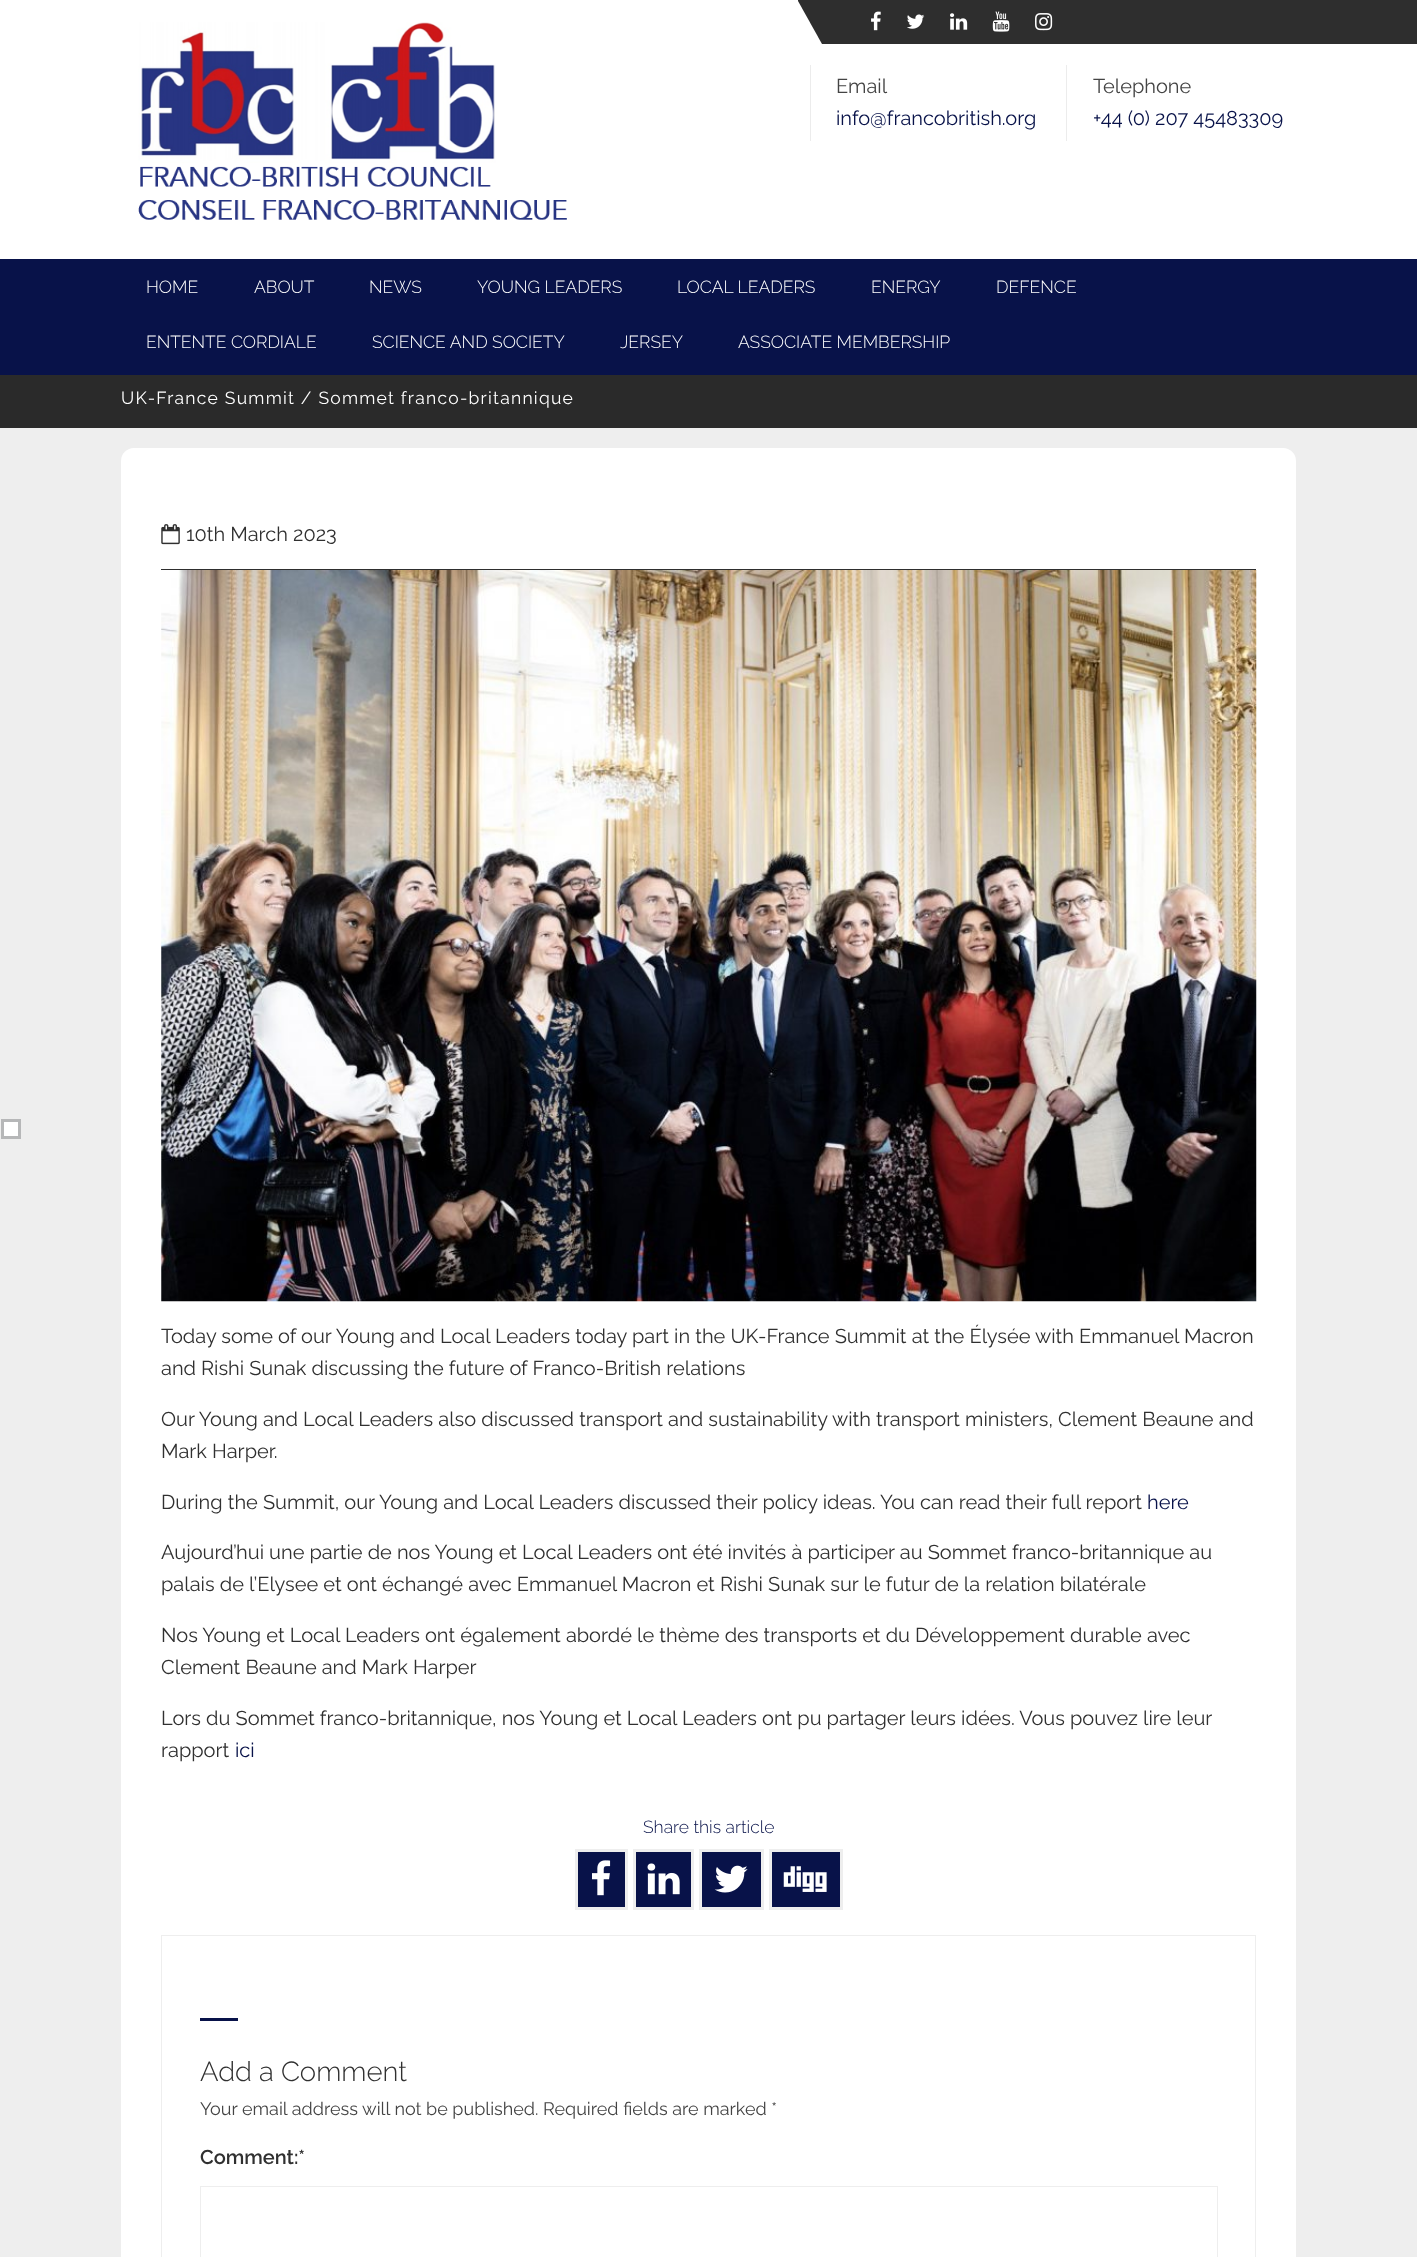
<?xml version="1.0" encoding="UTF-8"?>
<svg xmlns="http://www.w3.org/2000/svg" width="1417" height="2257">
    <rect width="100%" height="100%" fill="#FFFFFF"/>
    <image x="138" y="22" width="429" height="198" href="img_01.png"/>
    <path d="M 798 0 V 1 L 822 44 H 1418 V 0 Z" fill="#2E2E2E"/>
    <image x="871" y="11" width="10" height="20" href="img_02.png"/>
    <image x="907" y="14" width="18" height="15" href="img_03.png"/>
    <image x="950" y="13" width="18" height="17" href="img_04.png"/>
    <image x="992" y="11" width="18" height="21" href="img_05.png"/>
    <image x="1035" y="13" width="18" height="18" href="img_06.png"/>
    <rect x="810" y="65" width="1" height="76" fill="#ECECEC"/>
    <text x="836" y="93" font-family="Raleway" font-size="20" fill="#444444">Email</text>
    <text x="836" y="125" font-family="Raleway" font-size="20" fill="#081249">info@francobritish.org</text>
    <rect x="1066" y="65" width="1" height="76" fill="#ECECEC"/>
    <text x="1093" y="93" font-family="Raleway" font-size="20" fill="#444444">Telephone</text>
    <text x="1093" y="125" font-family="Raleway" font-size="20" fill="#081249">+44 (0) 207 45483309</text>
    <rect x="0" y="259" width="1417" height="116" fill="#081249"/>
    <text x="146" y="293" font-family="Raleway" font-size="17.5" font-weight="300" fill="#FFFFFF">HOME</text>
    <text x="254" y="293" font-family="Raleway" font-size="17.5" font-weight="300" fill="#FFFFFF">ABOUT</text>
    <text x="369" y="293" font-family="Raleway" font-size="17.5" font-weight="300" fill="#FFFFFF">NEWS</text>
    <text x="477" y="293" font-family="Raleway" font-size="17.5" font-weight="300" fill="#FFFFFF">YOUNG LEADERS</text>
    <text x="677" y="293" font-family="Raleway" font-size="17.5" font-weight="300" fill="#FFFFFF">LOCAL LEADERS</text>
    <text x="871" y="293" font-family="Raleway" font-size="17.5" font-weight="300" fill="#FFFFFF">ENERGY</text>
    <text x="996" y="293" font-family="Raleway" font-size="17.5" font-weight="300" fill="#FFFFFF">DEFENCE</text>
    <text x="146" y="348" font-family="Raleway" font-size="17.5" font-weight="300" fill="#FFFFFF">ENTENTE CORDIALE</text>
    <text x="372" y="348" font-family="Raleway" font-size="17.5" font-weight="300" fill="#FFFFFF">SCIENCE AND SOCIETY</text>
    <text x="620" y="348" font-family="Raleway" font-size="17.5" font-weight="300" fill="#FFFFFF">JERSEY</text>
    <text x="738" y="348" font-family="Raleway" font-size="17.5" font-weight="300" fill="#FFFFFF">ASSOCIATE MEMBERSHIP</text>
    <rect x="0" y="375" width="1417" height="53" fill="#2A2A2A"/>
    <text x="121" y="404" font-family="Raleway" font-size="17.5" letter-spacing="1.25" fill="#FFFFFF">UK-France Summit / Sommet franco-britannique</text>
    <rect x="0" y="428" width="1417" height="1829" fill="#EEEEEE"/>
    <rect x="121" y="448" width="1175" height="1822" rx="13" fill="#FFFFFF"/>
    <rect x="161" y="569" width="1095" height="1" fill="#2E2E2E"/>
    <image x="161" y="524" width="19" height="21" href="img_07.png"/>
    <text x="186" y="541" font-family="Raleway" font-size="20" fill="#303030">10th March 2023</text>
    <image x="161" y="570" width="1096" height="732" href="img_08.png"/>
    <text font-family="Raleway" font-size="20" fill="#303030">
        <tspan x="161" y="1343">Today some of our Young and Local Leaders today part in the UK-France Summit at the Élysée with Emmanuel Macron</tspan>
        <tspan x="161" y="1375">and Rishi Sunak discussing the future of Franco-British relations</tspan>
    </text>
    <text font-family="Raleway" font-size="20" fill="#303030">
        <tspan x="161" y="1426">Our Young and Local Leaders also discussed transport and sustainability with transport ministers, Clement Beaune and</tspan>
        <tspan x="161" y="1458">Mark Harper.</tspan>
    </text>
    <text x="161" y="1509" font-family="Raleway" font-size="20" fill="#303030">During the Summit, our Young and Local Leaders discussed their policy ideas. You can read their full report</text>
    <text x="1147" y="1509" font-family="Raleway" font-size="20" fill="#081249">here</text>
    <text font-family="Raleway" font-size="20" fill="#303030">
        <tspan x="161" y="1559">Aujourd’hui une partie de nos Young et Local Leaders ont été invités à participer au Sommet franco-britannique au</tspan>
        <tspan x="161" y="1591">palais de l’Elysee et ont échangé avec Emmanuel Macron et Rishi Sunak sur le futur de la relation bilatérale</tspan>
    </text>
    <text font-family="Raleway" font-size="20" fill="#303030">
        <tspan x="161" y="1642">Nos Young et Local Leaders ont également abordé le thème des transports et du Développement durable avec</tspan>
        <tspan x="161" y="1674">Clement Beaune and Mark Harper</tspan>
    </text>
    <text font-family="Raleway" font-size="20" fill="#303030">
        <tspan x="161" y="1725">Lors du Sommet franco-britannique, nos Young et Local Leaders ont pu partager leurs idées. Vous pouvez lire leur</tspan>
        <tspan x="161" y="1757">rapport</tspan>
    </text>
    <text x="235" y="1757" font-family="Raleway" font-size="20" fill="#081249">ici</text>
    <text x="643" y="1833" font-family="Raleway" font-size="17.5" font-weight="300" fill="#081249">Share this article</text>
    <rect x="576.5" y="1850.5" width="50" height="58" fill="#081249" stroke="#EEEEEE" stroke-width="3"/>
    <image x="592" y="1860" width="19" height="36" href="img_09.png"/>
    <rect x="634.5" y="1850.5" width="58" height="58" fill="#081249" stroke="#EEEEEE" stroke-width="3"/>
    <image x="647" y="1863" width="33" height="32" href="img_10.png"/>
    <rect x="700.5" y="1850.5" width="62" height="58" fill="#081249" stroke="#EEEEEE" stroke-width="3"/>
    <image x="714" y="1865" width="34" height="28" href="img_11.png"/>
    <rect x="770.5" y="1850.5" width="71" height="58" fill="#081249" stroke="#EEEEEE" stroke-width="3"/>
    <image x="783" y="1866" width="44" height="26" href="img_12.png"/>
    <rect x="161.5" y="1935.5" width="1094" height="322" fill="none" stroke="#EEEEEE"/>
    <rect x="200" y="2018" width="38" height="3" fill="#081249"/>
    <text x="200" y="2081" font-family="Raleway" font-size="27.5" font-weight="300" fill="#303030">Add a Comment</text>
    <rect x="2.5" y="1120.5" width="17" height="17" fill="#FFFFFF" stroke="#B6B7B8" stroke-width="3"/>
    <text x="200" y="2115" font-family="Raleway" font-size="18" fill="#444444">Your email address will not be published. Required fields are marked *</text>
    <text x="200" y="2164" font-family="Raleway" font-size="20" font-weight="600" fill="#303030">Comment:*</text>
    <rect x="200.5" y="2186.5" width="1017" height="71" fill="none" stroke="#EEEEEE"/>
</svg>
